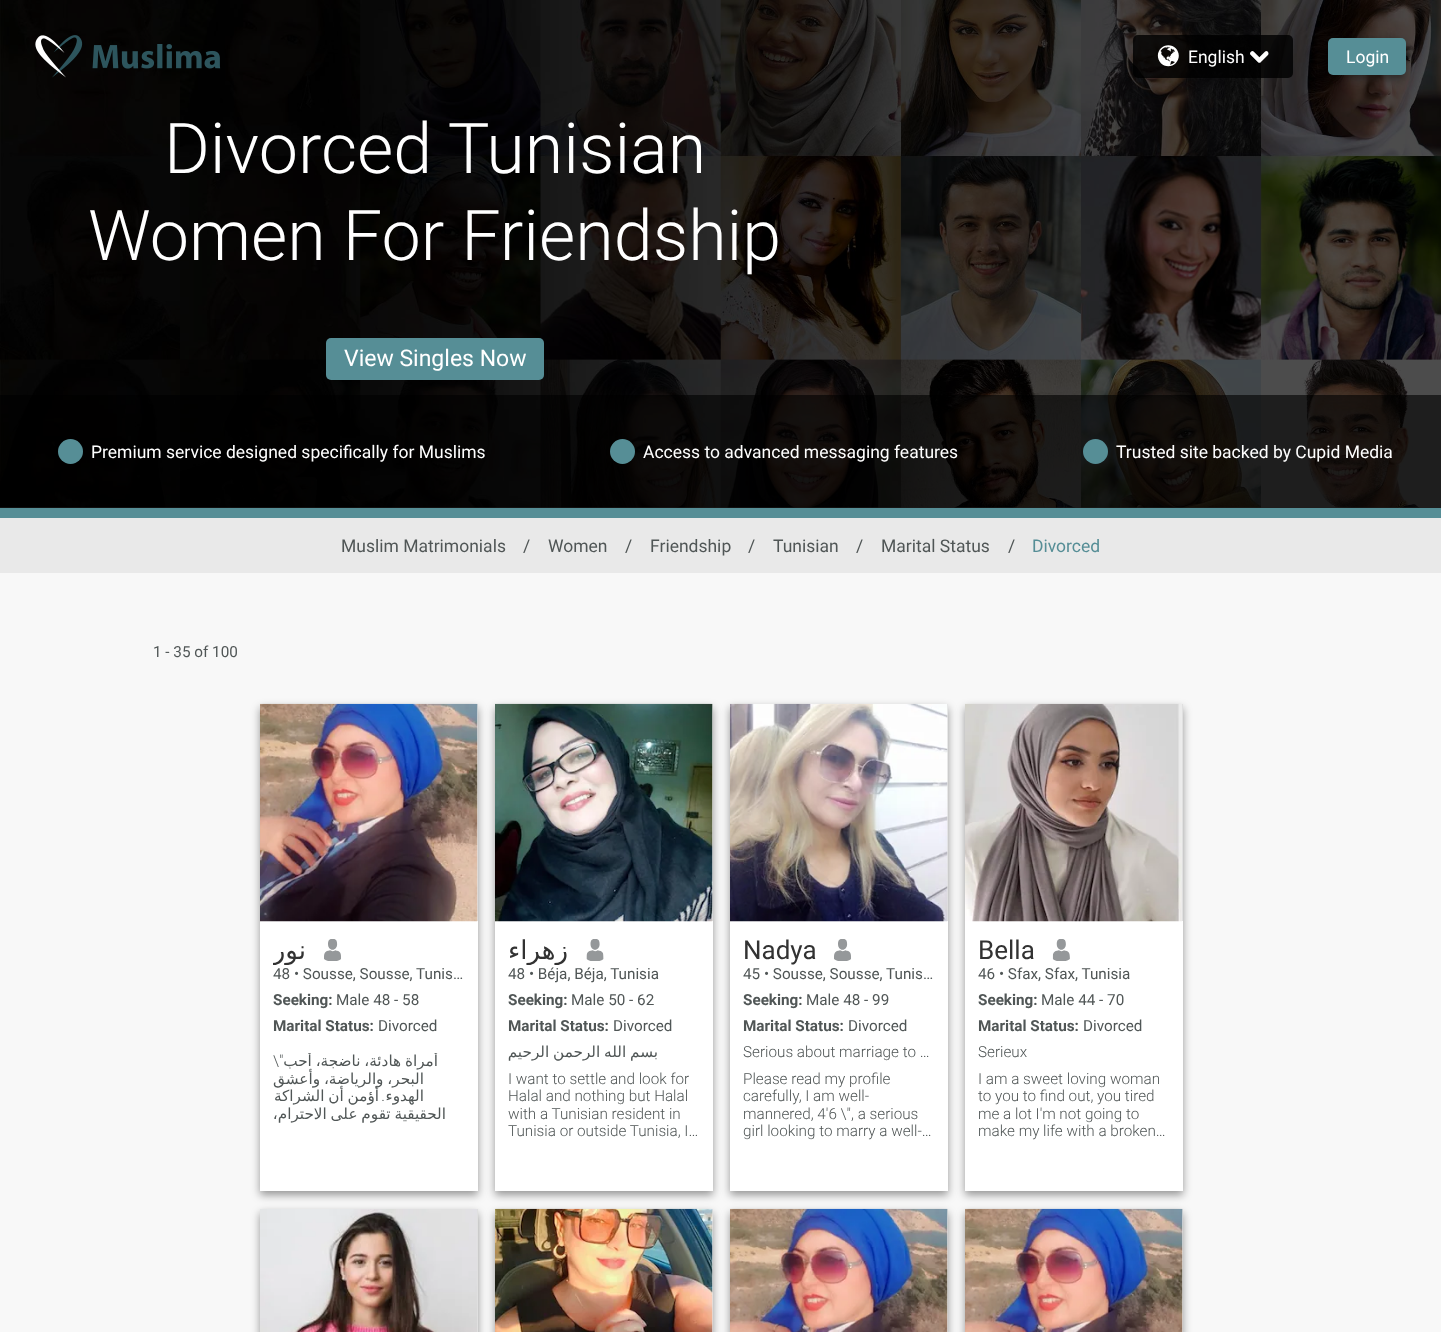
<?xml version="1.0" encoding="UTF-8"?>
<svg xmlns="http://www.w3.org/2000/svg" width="1441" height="1332">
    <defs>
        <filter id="blur1" x="-50%" y="-200%" width="200%" height="500%"><feGaussianBlur stdDeviation="4"/></filter>
        <clipPath id="clip1"><rect x="273" y="935" width="33" height="30"/></clipPath>
        <clipPath id="clip2"><rect x="273" y="1053" width="191" height="70"/></clipPath>
        <clipPath id="clip3"><rect x="508" y="935" width="61" height="30"/></clipPath>
    </defs>
    <rect width="100%" height="100%" fill="#F8F8F8"/>
    <rect x="0" y="507" width="1441" height="1" fill="#4D4D4D"/>
    <image x="0" y="0" width="1441" height="508" href="img_05.png"/>
    <image x="35" y="35" width="48" height="43" href="img_01.png"/>
    <image x="92" y="44" width="129" height="25" href="img_02.png"/>
    <rect x="1133" y="35" width="160" height="43" rx="5" fill="#000000" fill-opacity="0.8"/>
    <image x="1157" y="45" width="22" height="22" href="img_03.png"/>
    <text x="1188" y="63" font-family="Roboto" font-size="17.5" fill="#FFFFFF">English</text>
    <image x="1250" y="51" width="19" height="12" href="img_04.png"/>
    <rect x="1328" y="41" width="78" height="38" rx="5" fill="#000000" fill-opacity="0.4" filter="url(#blur1)"/>
    <rect x="1328" y="38" width="78" height="37" rx="5" fill="#568E96"/>
    <text x="1346" y="63" font-family="Roboto" font-size="17.5" fill="#FFFFFF">Login</text>
    <text x="164" y="173" font-family="Roboto" font-size="70" font-weight="300" fill="#FFFFFF">Divorced Tunisian</text>
    <text x="88" y="260" font-family="Roboto" font-size="70" font-weight="300" fill="#FFFFFF">Women For Friendship</text>
    <rect x="326" y="338" width="218" height="42" rx="5" fill="#568E96"/>
    <text x="344" y="366" font-family="Roboto" font-size="23" fill="#FFFFFF">View Singles Now</text>
    <rect x="0" y="395" width="1441" height="113" fill="#000000" fill-opacity="0.6"/>
    <circle cx="70.5" cy="451.5" r="12.5" fill="#568E96"/>
    <text x="91" y="458" font-family="Roboto" font-size="17.5" fill="#FFFFFF">Premium service designed specifically for Muslims</text>
    <circle cx="622.5" cy="451.5" r="12.5" fill="#568E96"/>
    <text x="643" y="458" font-family="Roboto" font-size="17.5" fill="#FFFFFF">Access to advanced messaging features</text>
    <circle cx="1095.5" cy="451.5" r="12.5" fill="#568E96"/>
    <text x="1116" y="458" font-family="Roboto" font-size="17.5" fill="#FFFFFF">Trusted site backed by Cupid Media</text>
    <rect x="0" y="508" width="1441" height="10" fill="#568E96"/>
    <rect x="0" y="518" width="1441" height="55" fill="#E9E9E9"/>
    <text x="341" y="552" font-family="Roboto" font-size="17.5" fill="#505656">Muslim Matrimonials</text>
    <text x="523" y="552" font-family="Roboto" font-size="17.5" fill="#505656">/</text>
    <text x="548" y="552" font-family="Roboto" font-size="17.5" fill="#505656">Women</text>
    <text x="625" y="552" font-family="Roboto" font-size="17.5" fill="#505656">/</text>
    <text x="650" y="552" font-family="Roboto" font-size="17.5" fill="#505656">Friendship</text>
    <text x="748" y="552" font-family="Roboto" font-size="17.5" fill="#505656">/</text>
    <text x="773" y="552" font-family="Roboto" font-size="17.5" fill="#505656">Tunisian</text>
    <text x="856" y="552" font-family="Roboto" font-size="17.5" fill="#505656">/</text>
    <text x="881" y="552" font-family="Roboto" font-size="17.5" fill="#505656">Marital Status</text>
    <text x="1008" y="552" font-family="Roboto" font-size="17.5" fill="#505656">/</text>
    <text x="1032" y="552" font-family="Roboto" font-size="17.5" fill="#568E96">Divorced</text>
    <text x="153" y="657" font-family="Roboto" font-size="15.25" fill="#505656">1 - 35 of 100</text>
    <rect x="260" y="708" width="218" height="487" fill="#000000" fill-opacity="0.4" filter="url(#blur1)"/>
    <rect x="260" y="921" width="218" height="270" fill="#FFFFFF"/>
    <rect x="477" y="704" width="1" height="217" fill="#E0E0E0"/>
    <image x="260" y="703" width="218" height="219" href="img_06.png"/>
    <g clip-path="url(#clip1)">
        <text x="306" y="959" font-family="DejaVu Sans" font-size="26" direction="rtl" fill="#323232">نور</text>
    </g>
    <image x="324" y="939" width="17" height="22" href="img_07.png"/>
    <text x="273" y="979" font-family="Roboto" font-size="15.25" fill="#505656">48 • Sousse, Sousse, Tunis…</text>
    <text x="273" y="1005" font-family="Roboto" font-size="15.25" font-weight="700" fill="#505656">Seeking:</text>
    <text x="336" y="1005" font-family="Roboto" font-size="15.25" fill="#505656">Male 48 - 58</text>
    <text x="273" y="1031" font-family="Roboto" font-size="15.25" font-weight="700" fill="#505656">Marital Status:</text>
    <text x="378" y="1031" font-family="Roboto" font-size="15.25" fill="#505656">Divorced</text>
    <text x="273" y="1066" font-family="Roboto" font-size="15.25" font-weight="300" fill="#505656">\"</text>
    <g clip-path="url(#clip2)">
        <text x="438" y="1066" word-spacing="-1" font-family="DejaVu Sans" font-size="15.25" direction="rtl" fill="#505656">أمراة هادئة، ناضجة، أحب</text>
    </g>
    <text x="424" y="1084" word-spacing="-1" font-family="DejaVu Sans" font-size="15.25" direction="rtl" fill="#505656">البحر، والرياضة، وأعشق</text>
    <text x="379" y="1101" word-spacing="-1" font-family="DejaVu Sans" font-size="15.25" direction="rtl" fill="#505656">أؤمن أن الشراكة</text>
    <text x="385" y="1101" font-family="Roboto" font-size="15.25" font-weight="300" direction="rtl" fill="#505656">.</text>
    <text x="424" y="1101" font-family="DejaVu Sans" font-size="15.25" direction="rtl" fill="#505656">الهدوء</text>
    <text x="446" y="1119" word-spacing="-1" font-family="DejaVu Sans" font-size="15.25" direction="rtl" fill="#505656">الحقيقية تقوم على الاحترام،</text>
    <rect x="495" y="708" width="218" height="487" fill="#000000" fill-opacity="0.4" filter="url(#blur1)"/>
    <rect x="495" y="921" width="218" height="270" fill="#FFFFFF"/>
    <rect x="712" y="704" width="1" height="217" fill="#E0E0E0"/>
    <image x="495" y="703" width="218" height="219" href="img_08.png"/>
    <g clip-path="url(#clip3)">
        <text x="568" y="959" font-family="DejaVu Sans" font-size="26" direction="rtl" fill="#323232">زهراء</text>
    </g>
    <image x="586" y="939" width="18" height="22" href="img_09.png"/>
    <text x="508" y="979" font-family="Roboto" font-size="15.25" fill="#505656">48 • Béja, Béja, Tunisia</text>
    <text x="508" y="1005" font-family="Roboto" font-size="15.25" font-weight="700" fill="#505656">Seeking:</text>
    <text x="571" y="1005" font-family="Roboto" font-size="15.25" fill="#505656">Male 50 - 62</text>
    <text x="508" y="1031" font-family="Roboto" font-size="15.25" font-weight="700" fill="#505656">Marital Status:</text>
    <text x="613" y="1031" font-family="Roboto" font-size="15.25" fill="#505656">Divorced</text>
    <text x="658" y="1057" word-spacing="-1" font-family="DejaVu Sans" font-size="15.25" direction="rtl" fill="#505656">بسم الله الرحمن الرحيم</text>
    <text font-family="Roboto" font-size="15.25" font-weight="300" fill="#505656">
        <tspan x="508" y="1084">I want to settle and look for</tspan>
        <tspan x="508" y="1101">Halal and nothing but Halal</tspan>
        <tspan x="508" y="1119">with a Tunisian resident in</tspan>
        <tspan x="508" y="1136">Tunisia or outside Tunisia, I…</tspan>
    </text>
    <rect x="730" y="708" width="218" height="487" fill="#000000" fill-opacity="0.4" filter="url(#blur1)"/>
    <rect x="730" y="921" width="218" height="270" fill="#FFFFFF"/>
    <rect x="947" y="704" width="1" height="217" fill="#E0E0E0"/>
    <image x="730" y="703" width="218" height="219" href="img_10.png"/>
    <text x="743" y="959" font-family="Roboto" font-size="26" fill="#323232">Nadya</text>
    <image x="834" y="939" width="17" height="22" href="img_07.png"/>
    <text x="743" y="979" font-family="Roboto" font-size="15.25" fill="#505656">45 • Sousse, Sousse, Tunis…</text>
    <text x="743" y="1005" font-family="Roboto" font-size="15.25" font-weight="700" fill="#505656">Seeking:</text>
    <text x="806" y="1005" font-family="Roboto" font-size="15.25" fill="#505656">Male 48 - 99</text>
    <text x="743" y="1031" font-family="Roboto" font-size="15.25" font-weight="700" fill="#505656">Marital Status:</text>
    <text x="848" y="1031" font-family="Roboto" font-size="15.25" fill="#505656">Divorced</text>
    <text font-family="Roboto" font-size="15.25" font-weight="300" fill="#505656">
        <tspan x="743" y="1057">Serious about marriage to …</tspan>
        <tspan x="743" y="1084">Please read my profile</tspan>
        <tspan x="743" y="1101">carefully, I am well-</tspan>
        <tspan x="743" y="1119">mannered, 4'6 \", a serious</tspan>
        <tspan x="743" y="1136">girl looking to marry a well-…</tspan>
    </text>
    <rect x="965" y="708" width="218" height="487" fill="#000000" fill-opacity="0.4" filter="url(#blur1)"/>
    <rect x="965" y="921" width="218" height="270" fill="#FFFFFF"/>
    <rect x="1182" y="704" width="1" height="217" fill="#E0E0E0"/>
    <image x="965" y="703" width="217" height="219" href="img_11.png"/>
    <text x="978" y="959" font-family="Roboto" font-size="26" fill="#323232">Bella</text>
    <image x="1052" y="939" width="18" height="22" href="img_12.png"/>
    <text x="978" y="979" font-family="Roboto" font-size="15.25" fill="#505656">46 • Sfax, Sfax, Tunisia</text>
    <text x="978" y="1005" font-family="Roboto" font-size="15.25" font-weight="700" fill="#505656">Seeking:</text>
    <text x="1041" y="1005" font-family="Roboto" font-size="15.25" fill="#505656">Male 44 - 70</text>
    <text x="978" y="1031" font-family="Roboto" font-size="15.25" font-weight="700" fill="#505656">Marital Status:</text>
    <text x="1083" y="1031" font-family="Roboto" font-size="15.25" fill="#505656">Divorced</text>
    <text font-family="Roboto" font-size="15.25" font-weight="300" fill="#505656">
        <tspan x="978" y="1057">Serieux</tspan>
        <tspan x="978" y="1084">I am a sweet loving woman</tspan>
        <tspan x="978" y="1101">to you to find out, you tired</tspan>
        <tspan x="978" y="1119">me a lot I'm not going to</tspan>
        <tspan x="978" y="1136">make my life with a broken…</tspan>
    </text>
    <rect x="260" y="1213" width="218" height="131" fill="#000000" fill-opacity="0.4" filter="url(#blur1)"/>
    <rect x="477" y="1209" width="1" height="123" fill="#E0E0E0"/>
    <image x="260" y="1209" width="217" height="123" href="img_13.png"/>
    <rect x="495" y="1213" width="218" height="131" fill="#000000" fill-opacity="0.4" filter="url(#blur1)"/>
    <rect x="712" y="1209" width="1" height="123" fill="#E0E0E0"/>
    <image x="495" y="1208" width="218" height="124" href="img_14.png"/>
    <rect x="730" y="1213" width="218" height="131" fill="#000000" fill-opacity="0.4" filter="url(#blur1)"/>
    <rect x="947" y="1209" width="1" height="123" fill="#E0E0E0"/>
    <image x="730" y="1208" width="218" height="124" href="img_15.png"/>
    <rect x="965" y="1213" width="218" height="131" fill="#000000" fill-opacity="0.4" filter="url(#blur1)"/>
    <rect x="1182" y="1209" width="1" height="123" fill="#E0E0E0"/>
    <image x="965" y="1208" width="218" height="124" href="img_15.png"/>
</svg>
